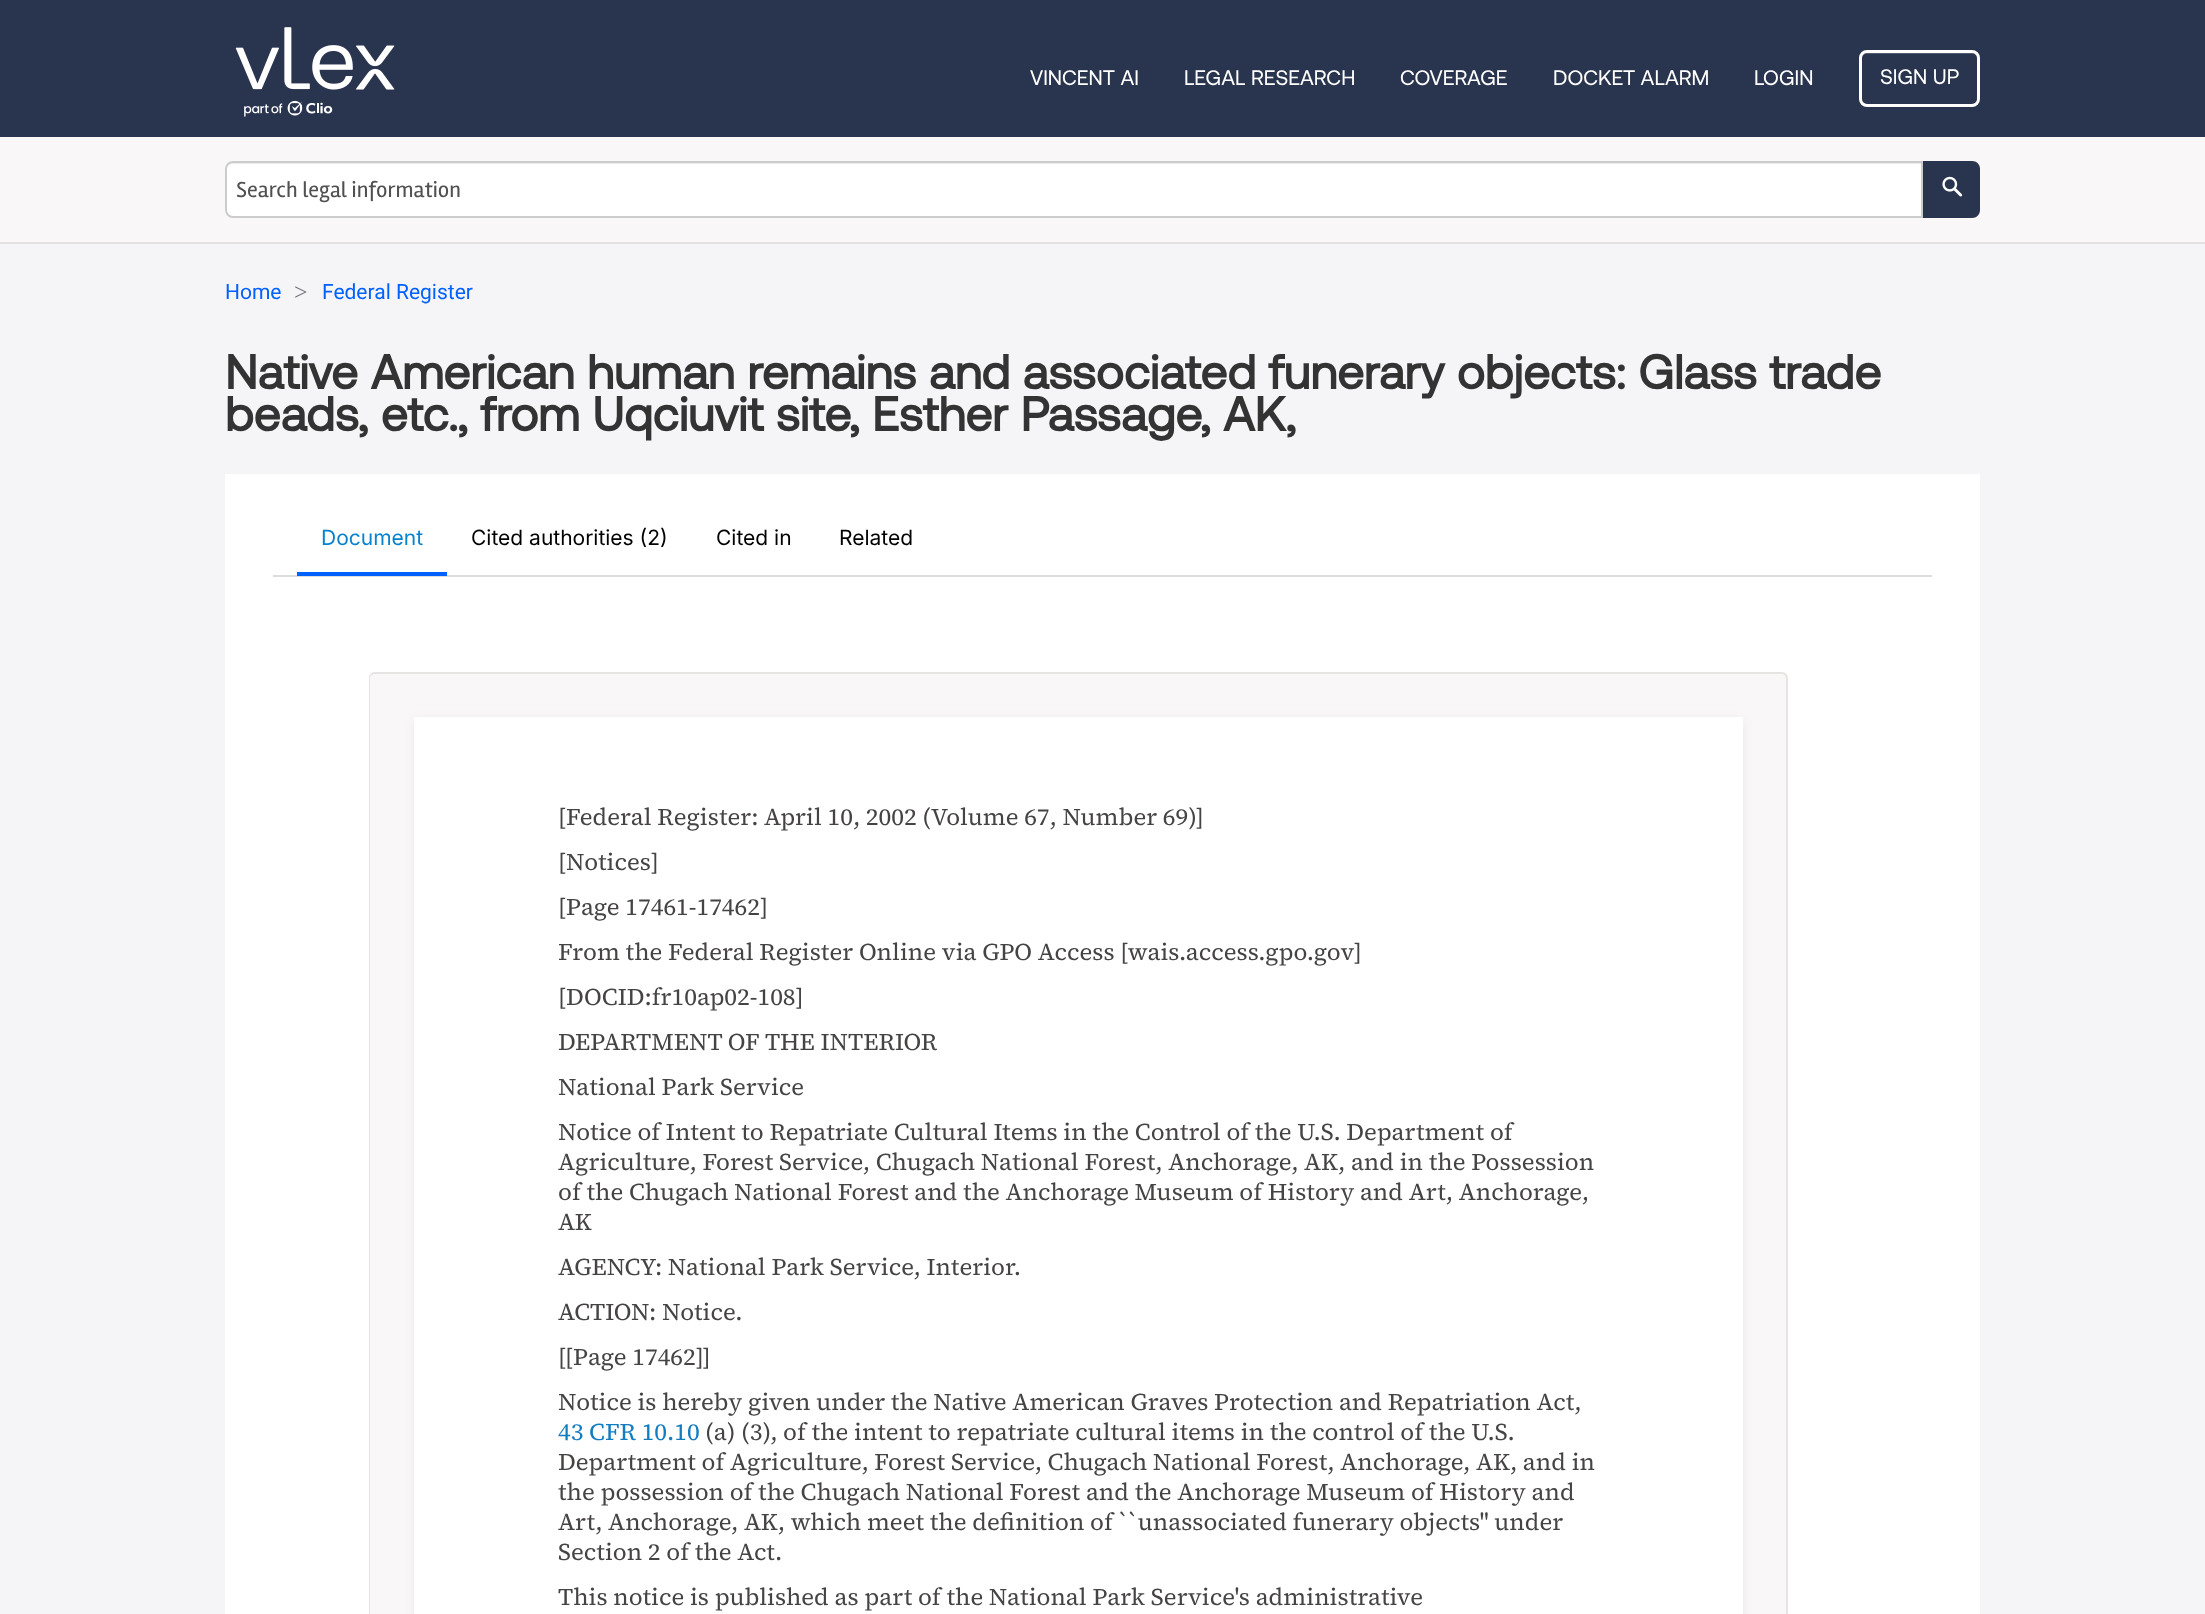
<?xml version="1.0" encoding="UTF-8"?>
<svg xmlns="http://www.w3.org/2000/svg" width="2205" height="1614">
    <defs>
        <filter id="blur1" x="-50%" y="-200%" width="200%" height="500%"><feGaussianBlur stdDeviation="6"/></filter>
    </defs>
    <rect width="100%" height="100%" fill="#F5F5F7"/>
    <rect x="0" y="0" width="2205" height="137" fill="#29354E"/>
    <image x="235" y="27" width="160" height="90" href="img_01.png"/>
    <text x="1030" y="85" font-family="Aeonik" font-size="21" fill="#FFFFFF">VINCENT AI</text>
    <text x="1184" y="85" font-family="Aeonik" font-size="21" fill="#FFFFFF">LEGAL RESEARCH</text>
    <text x="1400" y="85" font-family="Aeonik" font-size="21" fill="#FFFFFF">COVERAGE</text>
    <text x="1553" y="85" font-family="Aeonik" font-size="21" fill="#FFFFFF">DOCKET ALARM</text>
    <text x="1754" y="85" font-family="Aeonik" font-size="21" fill="#FFFFFF">LOGIN</text>
    <path d="M 1866 54 H 1972 C 1975 54 1977 56 1977 58 C 1977 55 1975 53 1972 53 H 1867 C 1864 53 1862 55 1862 58 C 1862 56 1864 54 1866 54 Z" fill="#545D71"/>
    <rect x="1860.5" y="51.5" width="118" height="54" rx="6.5" fill="none" stroke="#FFFFFF" stroke-width="3"/>
    <text x="1880" y="84" font-family="Aeonik" font-size="21" fill="#FFFFFF">SIGN UP</text>
    <rect x="0" y="137" width="2205" height="105" fill="#F9F7F7"/>
    <rect x="0" y="242" width="2205" height="2" fill="#E1E1E1"/>
    <path d="M 233 161 H 1923 V 218 H 233 C 228.5 218 225 214.5 225 210 V 169 C 225 164.5 228.5 161 233 161 Z" fill="#FFFFFF"/>
    <path d="M 232 164 H 1922 V 162 H 233 C 230 162 228 164 227 166 C 228 165 230 164 232 164 Z" fill="#ECECEC"/>
    <path d="M 233 162 H 1922 V 217 H 233 C 229 217 226 214 226 210 V 169 C 226 165 229 162 233 162 Z" fill="none" stroke="#CCCCCC" stroke-width="2"/>
    <text x="236" y="197" font-family="Rambla" font-size="22.5" fill="#505050">Search legal information</text>
    <path d="M 1923 161 H 1972 C 1976.5 161 1980 164.5 1980 169 V 210 C 1980 214.5 1976.5 218 1972 218 H 1923 Z" fill="#29354E"/>
    <image x="1942" y="176" width="21" height="21" href="img_02.png"/>
    <text x="225" y="299" font-family="Roboto" font-size="21" fill="#0161FF">Home</text>
    <text x="294" y="300" font-family="Liberation Serif" font-size="24" fill="#71717A">&gt;</text>
    <text x="322" y="299" font-family="Roboto" font-size="21" fill="#0161FF">Federal Register</text>
    <text font-family="Aeonik" font-size="48" font-weight="700" fill="#333333">
        <tspan x="225" y="389">Native American human remains and associated funerary objects: Glass trade</tspan>
        <tspan x="225" y="431">beads, etc., from Uqciuvit site, Esther Passage, AK,</tspan>
    </text>
    <rect x="225" y="474" width="1755" height="1140" fill="#FFFFFF"/>
    <rect x="273" y="575" width="1659" height="2" fill="#DDDDDD"/>
    <text x="321" y="545" font-family="Inter" font-size="21" fill="#0882CF">Document</text>
    <rect x="297" y="572" width="150" height="4" fill="#0161FF"/>
    <text x="471" y="545" font-family="Inter" font-size="21" fill="#000000">Cited authorities (2)</text>
    <text x="716" y="545" font-family="Inter" font-size="21" fill="#000000">Cited in</text>
    <text x="839" y="545" font-family="Inter" font-size="21" fill="#000000">Related</text>
    <path d="M 375 672 H 1782 C 1785.5 672 1788 674.5 1788 678 V 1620 H 369 V 678 C 369 674.5 371.5 672 375 672 Z" fill="#F9F7F7"/>
    <path d="M 375 672 H 1782 C 1785 672 1788 675 1788 678 V 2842 H 369 V 678 C 369 675 372 672 375 672 Z M 375 674 H 1782 C 1784 674 1786 676 1786 678 V 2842 H 370 V 678 C 370 676 373 674 375 674 Z" fill="#E7E4E4" fill-rule="evenodd"/>
    <rect x="414" y="720" width="1329" height="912" fill="#000000" fill-opacity="0.06" filter="url(#blur1)"/>
    <rect x="414" y="717" width="1329" height="897" fill="#FFFFFF"/>
    <text font-family="'Source Serif 4'" font-size="24" fill="#464343">
        <tspan x="558" y="825">[Federal Register: April 10, 2002 (Volume 67, Number 69)]</tspan>
        <tspan x="558" y="870">[Notices]</tspan>
        <tspan x="558" y="915">[Page 17461-17462]</tspan>
        <tspan x="558" y="960">From the Federal Register Online via GPO Access [wais.access.gpo.gov]</tspan>
        <tspan x="558" y="1005">[DOCID:fr10ap02-108]</tspan>
        <tspan x="558" y="1050">DEPARTMENT OF THE INTERIOR</tspan>
        <tspan x="558" y="1095">National Park Service</tspan>
        <tspan x="558" y="1140">Notice of Intent to Repatriate Cultural Items in the Control of the U.S. Department of</tspan>
        <tspan x="558" y="1170">Agriculture, Forest Service, Chugach National Forest, Anchorage, AK, and in the Possession</tspan>
        <tspan x="558" y="1200">of the Chugach National Forest and the Anchorage Museum of History and Art, Anchorage,</tspan>
        <tspan x="558" y="1230">AK</tspan>
        <tspan x="558" y="1275">AGENCY: National Park Service, Interior.</tspan>
        <tspan x="558" y="1320">ACTION: Notice.</tspan>
        <tspan x="558" y="1365">[[Page 17462]]</tspan>
        <tspan x="558" y="1410">Notice is hereby given under the Native American Graves Protection and Repatriation Act,</tspan>
    </text>
    <text x="558" y="1440" font-family="'Source Serif 4'" font-size="24" fill="#127CC1">43 CFR 10.10</text>
    <text x="705" y="1440" font-family="'Source Serif 4'" font-size="24" fill="#464343">(a) (3), of the intent to repatriate cultural items in the control of the U.S.</text>
    <text font-family="'Source Serif 4'" font-size="24" fill="#464343">
        <tspan x="558" y="1470">Department of Agriculture, Forest Service, Chugach National Forest, Anchorage, AK, and in</tspan>
        <tspan x="558" y="1500">the possession of the Chugach National Forest and the Anchorage Museum of History and</tspan>
        <tspan x="558" y="1530">Art, Anchorage, AK, which meet the definition of ``unassociated funerary objects'' under</tspan>
        <tspan x="558" y="1560">Section 2 of the Act.</tspan>
        <tspan x="558" y="1605">This notice is published as part of the National Park Service's administrative</tspan>
    </text>
</svg>
